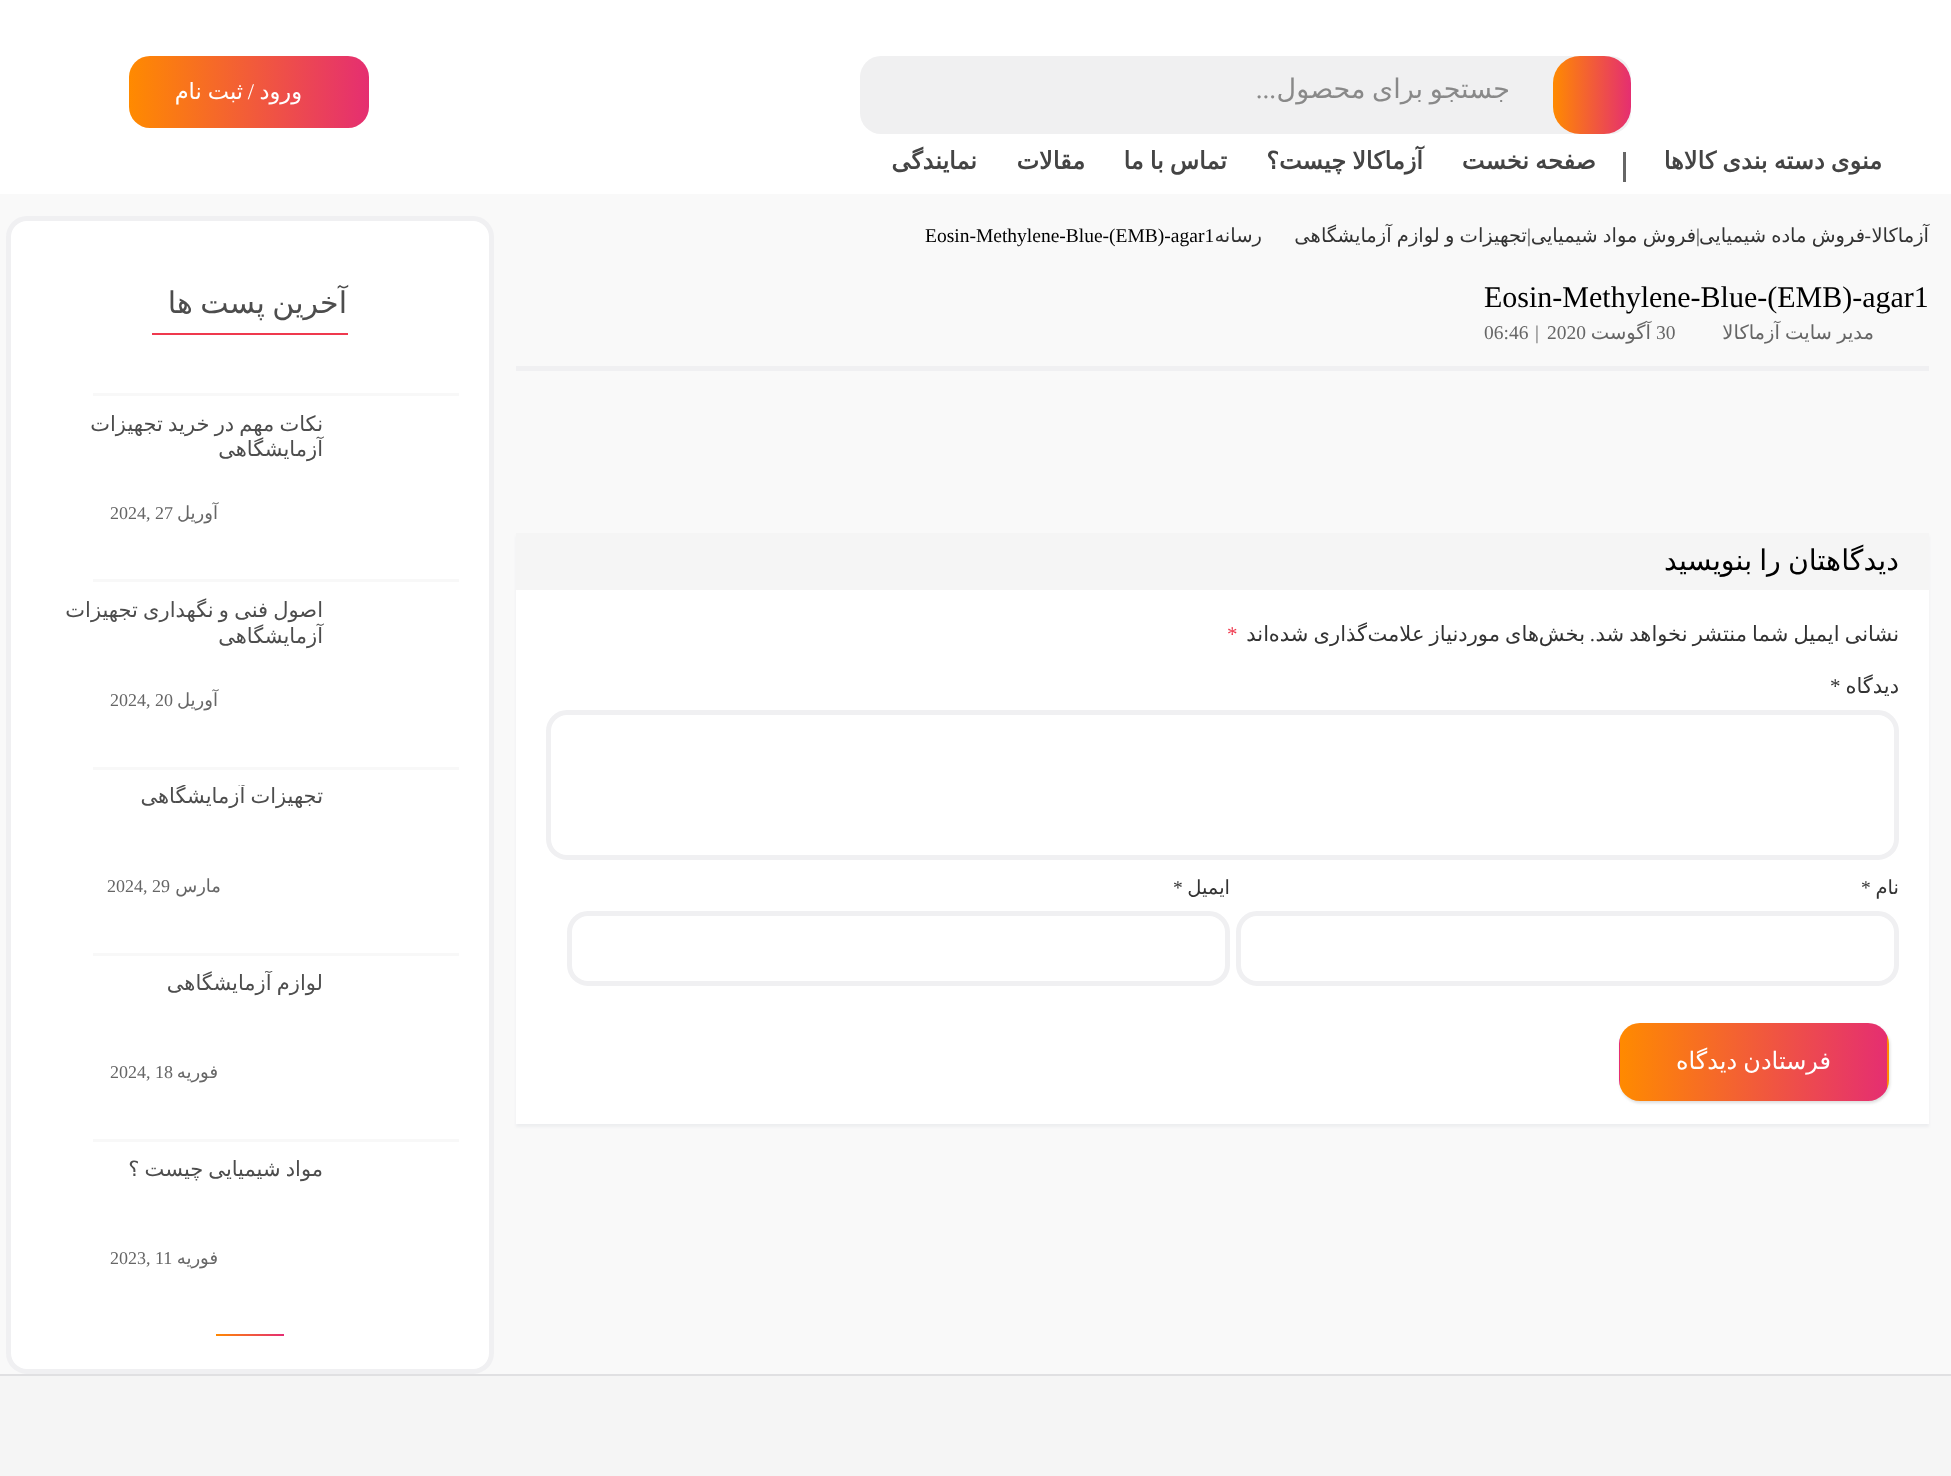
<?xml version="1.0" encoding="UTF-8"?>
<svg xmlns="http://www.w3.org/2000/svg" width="1951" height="1476">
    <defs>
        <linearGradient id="g1" gradientUnits="userSpaceOnUse" x1="1553" y1="95" x2="1631" y2="95"><stop offset="0" stop-color="#FF8A00"/><stop offset="1" stop-color="#E52E71"/></linearGradient>
        <linearGradient id="g2" gradientUnits="userSpaceOnUse" x1="129" y1="92" x2="369" y2="91"><stop offset="0" stop-color="#FF8A00"/><stop offset="1" stop-color="#E52E71"/></linearGradient>
        <filter id="blur1" x="-50%" y="-200%" width="200%" height="500%"><feGaussianBlur stdDeviation="1.5"/></filter>
        <clipPath id="clip1"><rect x="1619" y="1023" width="270" height="78" rx="21"/></clipPath>
        <linearGradient id="g3" gradientUnits="userSpaceOnUse" x1="1353" y1="1062" x2="1620" y2="1062"><stop offset="0" stop-color="#FF8A00"/><stop offset="1" stop-color="#E52E71"/></linearGradient>
        <linearGradient id="g4" gradientUnits="userSpaceOnUse" x1="1620" y1="1062" x2="1887" y2="1062"><stop offset="0" stop-color="#FF8A00"/><stop offset="1" stop-color="#E52E71"/></linearGradient>
        <linearGradient id="g5" gradientUnits="userSpaceOnUse" x1="1887" y1="1062" x2="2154" y2="1062"><stop offset="0" stop-color="#FF8A00"/><stop offset="1" stop-color="#E52E71"/></linearGradient>
        <linearGradient id="g6" gradientUnits="userSpaceOnUse" x1="215" y1="1334" x2="283" y2="1334"><stop offset="0" stop-color="#FF8A00"/><stop offset="1" stop-color="#E52E71"/></linearGradient>
        <clipPath id="clip2"><rect x="48" y="785" width="276" height="75"/></clipPath>
        <clipPath id="clip3"><rect x="48" y="971" width="276" height="75"/></clipPath>
    </defs>
    <rect width="100%" height="100%" fill="#F9F9F9"/>
    <rect x="0" y="0" width="1951" height="194" fill="#FFFFFF"/>
    <rect x="860" y="56" width="771" height="78" rx="21" fill="#F0F0F1"/>
    <rect x="1553" y="56" width="78" height="78" rx="27" fill="url(#g1)"/>
    <text x="1510" y="98" word-spacing="-2" font-family="DejaVu Sans" font-size="27" direction="rtl" fill="#898989">جستجو برای محصول</text>
    <text x="1276" y="98" font-family="Liberation Serif" font-size="27" direction="rtl" fill="#898989">...</text>
    <rect x="129" y="56" width="240" height="72" rx="21" fill="url(#g2)"/>
    <text x="302" y="99" font-family="DejaVu Sans" font-size="22.5" direction="rtl" fill="#FFFFFF">ورود</text>
    <text x="254" y="99" font-family="Liberation Serif" font-size="22.5" direction="rtl" fill="#FFFFFF">/</text>
    <text x="243" y="99" word-spacing="-1" font-family="DejaVu Sans" font-size="22.5" direction="rtl" fill="#FFFFFF">ثبت نام</text>
    <text x="1882" y="169" word-spacing="-1.5" font-family="DejaVu Sans" font-size="24" font-weight="700" direction="rtl" fill="#444444">منوی دسته بندی کالاها</text>
    <rect x="1623" y="152" width="3" height="30" fill="#666666"/>
    <text x="1596" y="169" word-spacing="-1.5" font-family="DejaVu Sans" font-size="24" font-weight="700" direction="rtl" fill="#444444">صفحه نخست</text>
    <text x="1423" y="169" word-spacing="-1.5" font-family="DejaVu Sans" font-size="24" font-weight="700" direction="rtl" fill="#444444">آزماکالا چیست؟</text>
    <text x="1227" y="169" word-spacing="-1.5" font-family="DejaVu Sans" font-size="24" font-weight="700" direction="rtl" fill="#444444">تماس با ما</text>
    <text x="1085" y="169" font-family="DejaVu Sans" font-size="24" font-weight="700" direction="rtl" fill="#444444">مقالات</text>
    <text x="977" y="169" font-family="DejaVu Sans" font-size="24" font-weight="700" direction="rtl" fill="#444444">نمایندگی</text>
    <text x="1929" y="242" font-family="DejaVu Sans" font-size="19.5" direction="rtl" fill="#333333">آزماکالا</text>
    <text x="1871" y="242" font-family="Liberation Serif" font-size="19.5" direction="rtl" fill="#333333">-</text>
    <text x="1865" y="242" word-spacing="-1" font-family="DejaVu Sans" font-size="19.5" direction="rtl" fill="#333333">فروش ماده شیمیایی</text>
    <text x="1700" y="242" font-family="Liberation Serif" font-size="19.5" direction="rtl" fill="#333333">|</text>
    <text x="1696" y="242" word-spacing="-1" font-family="DejaVu Sans" font-size="19.5" direction="rtl" fill="#333333">فروش مواد شیمیایی</text>
    <text x="1531" y="242" font-family="Liberation Serif" font-size="19.5" direction="rtl" fill="#333333">|</text>
    <text x="1527" y="242" word-spacing="-1" font-family="DejaVu Sans" font-size="19.5" direction="rtl" fill="#333333">تجهیزات و لوازم آزمایشگاهی</text>
    <text x="1262" y="242" font-family="DejaVu Sans" font-size="19.5" direction="rtl" fill="#333333">رسانه</text>
    <text x="925" y="242" font-family="Liberation Serif" font-size="19.5" fill="#000000">Eosin-Methylene-Blue-(EMB)-agar1</text>
    <text x="1484" y="307" font-family="Liberation Serif" font-size="30" fill="#000000">Eosin-Methylene-Blue-(EMB)-agar1</text>
    <text x="1874" y="339" word-spacing="-1" font-family="DejaVu Sans" font-size="19.5" direction="rtl" fill="#666666">مدیر سایت آزماکالا</text>
    <text x="1656" y="339" font-family="Liberation Serif" font-size="19.5" fill="#666666">30</text>
    <text x="1651" y="339" font-family="DejaVu Sans" font-size="19.5" direction="rtl" fill="#666666">آگوست</text>
    <text x="1547" y="339" font-family="Liberation Serif" font-size="19.5" fill="#666666">2020</text>
    <text x="1535" y="339" font-family="Liberation Serif" font-size="19.5" fill="#666666">|</text>
    <text x="1484" y="339" font-family="Liberation Serif" font-size="19.5" fill="#666666">06:46</text>
    <rect x="516" y="366" width="1413" height="5" fill="#F0F0F2"/>
    <rect x="516" y="536" width="1413" height="591" fill="#EDEEF0" filter="url(#blur1)"/>
    <rect x="516" y="590" width="1413" height="534" fill="#FFFFFF"/>
    <rect x="516" y="533" width="1413" height="57" fill="#F5F5F5"/>
    <text x="1899" y="570" word-spacing="-2" font-family="DejaVu Sans" font-size="28.5" direction="rtl" fill="#000000">دیدگاهتان را بنویسید</text>
    <text x="1899" y="641" word-spacing="-1.5" font-family="DejaVu Sans" font-size="21" direction="rtl" fill="#333333">نشانی ایمیل شما منتشر نخواهد شد</text>
    <text x="1595" y="641" font-family="Liberation Serif" font-size="21" direction="rtl" fill="#333333">.</text>
    <text x="1585" y="641" font-family="DejaVu Sans" font-size="21" direction="rtl" fill="#333333">بخش</text>
    <text x="1539" y="641" word-spacing="-1.5" font-family="DejaVu Sans" font-size="21" direction="rtl" fill="#333333">های موردنیاز علامت</text>
    <text x="1367" y="641" word-spacing="-1.5" font-family="DejaVu Sans" font-size="21" direction="rtl" fill="#333333">گذاری شده</text>
    <text x="1269" y="641" font-family="DejaVu Sans" font-size="21" direction="rtl" fill="#333333">اند</text>
    <text x="1227" y="641" font-family="Liberation Serif" font-size="21" fill="#EF394E">*</text>
    <text x="1899" y="693" font-family="DejaVu Sans" font-size="21" direction="rtl" fill="#333333">دیدگاه</text>
    <text x="1830" y="693" font-family="Liberation Serif" font-size="21" fill="#333333">*</text>
    <rect x="548.5" y="712.5" width="1348" height="145" rx="18.5" fill="none" stroke="#F0F0F2" stroke-width="5"/>
    <text x="1899" y="894" font-family="DejaVu Sans" font-size="19.5" direction="rtl" fill="#333333">نام</text>
    <text x="1861" y="894" font-family="Liberation Serif" font-size="19.5" fill="#333333">*</text>
    <rect x="1238.5" y="913.5" width="658" height="70" rx="18.5" fill="none" stroke="#F0F0F2" stroke-width="5"/>
    <text x="1230" y="894" font-family="DejaVu Sans" font-size="19.5" direction="rtl" fill="#333333">ایمیل</text>
    <text x="1173" y="894" font-family="Liberation Serif" font-size="19.5" fill="#333333">*</text>
    <rect x="569.5" y="913.5" width="658" height="70" rx="18.5" fill="none" stroke="#F0F0F2" stroke-width="5"/>
    <rect x="1620" y="1025" width="270" height="78" rx="21" fill="#DDDDDD" filter="url(#blur1)"/>
    <g clip-path="url(#clip1)">
        <rect x="1619" y="1037" width="1" height="50" fill="url(#g3)"/>
        <rect x="1620" y="1023" width="267" height="78" fill="url(#g4)"/>
        <rect x="1887" y="1035" width="2" height="54" fill="url(#g5)"/>
    </g>
    <text x="1831" y="1069" word-spacing="-1.5" font-family="DejaVu Sans" font-size="24" direction="rtl" fill="#FFFFFF">فرستادن دیدگاه</text>
    <rect x="8.5" y="218.5" width="483" height="1153" rx="18.5" fill="#FFFFFF" stroke="#F0F0F2" stroke-width="5"/>
    <rect x="152" y="333" width="196" height="2" fill="#EF394E"/>
    <text x="347" y="313" word-spacing="-2" font-family="DejaVu Sans" font-size="30" direction="rtl" fill="#4D4D4D">آخرین پست ها</text>
    <rect x="216" y="1334" width="68" height="2" fill="url(#g6)"/>
    <rect x="93" y="393" width="366" height="3" fill="#F8F8F8"/>
    <text font-family="DejaVu Sans" font-size="21" direction="rtl" fill="#4D4D4D">
        <tspan x="323" y="431" word-spacing="-1.5">نکات مهم در خرید تجهیزات</tspan>
        <tspan x="323" y="456">آزمایشگاهی</tspan>
    </text>
    <text x="218" y="519" font-family="DejaVu Sans" font-size="18" direction="rtl" fill="#666666">آوریل</text>
    <text x="110" y="519" font-family="Liberation Serif" font-size="18" fill="#666666">2024, 27</text>
    <rect x="93" y="579" width="366" height="3" fill="#F8F8F8"/>
    <text font-family="DejaVu Sans" font-size="21" direction="rtl" fill="#4D4D4D">
        <tspan x="323" y="617" word-spacing="-1.5">اصول فنی و نگهداری تجهیزات</tspan>
        <tspan x="323" y="643">آزمایشگاهی</tspan>
    </text>
    <text x="218" y="706" font-family="DejaVu Sans" font-size="18" direction="rtl" fill="#666666">آوریل</text>
    <text x="110" y="706" font-family="Liberation Serif" font-size="18" fill="#666666">2024, 20</text>
    <rect x="93" y="767" width="366" height="3" fill="#F8F8F8"/>
    <g clip-path="url(#clip2)">
        <text x="323" y="803" word-spacing="-1.5" font-family="DejaVu Sans" font-size="21" direction="rtl" fill="#4D4D4D">تجهیزات آزمایشگاهی</text>
    </g>
    <text x="221" y="892" font-family="DejaVu Sans" font-size="18" direction="rtl" fill="#666666">مارس</text>
    <text x="107" y="892" font-family="Liberation Serif" font-size="18" fill="#666666">2024, 29</text>
    <rect x="93" y="953" width="366" height="3" fill="#F8F8F8"/>
    <g clip-path="url(#clip3)">
        <text x="323" y="990" word-spacing="-1.5" font-family="DejaVu Sans" font-size="21" direction="rtl" fill="#4D4D4D">لوازم آزمایشگاهی</text>
    </g>
    <text x="218" y="1078" font-family="DejaVu Sans" font-size="18" direction="rtl" fill="#666666">فوریه</text>
    <text x="110" y="1078" font-family="Liberation Serif" font-size="18" fill="#666666">2024, 18</text>
    <rect x="93" y="1139" width="366" height="3" fill="#F8F8F8"/>
    <text x="323" y="1176" word-spacing="-1.5" font-family="DejaVu Sans" font-size="21" direction="rtl" fill="#4D4D4D">مواد شیمیایی چیست ؟</text>
    <text x="218" y="1264" font-family="DejaVu Sans" font-size="18" direction="rtl" fill="#666666">فوریه</text>
    <text x="110" y="1264" font-family="Liberation Serif" font-size="18" fill="#666666">2023, 11</text>
    <rect x="0" y="1376" width="1951" height="100" fill="#F5F5F5"/>
    <rect x="0" y="1374" width="1951" height="2" fill="#E0E0E2"/>
</svg>
